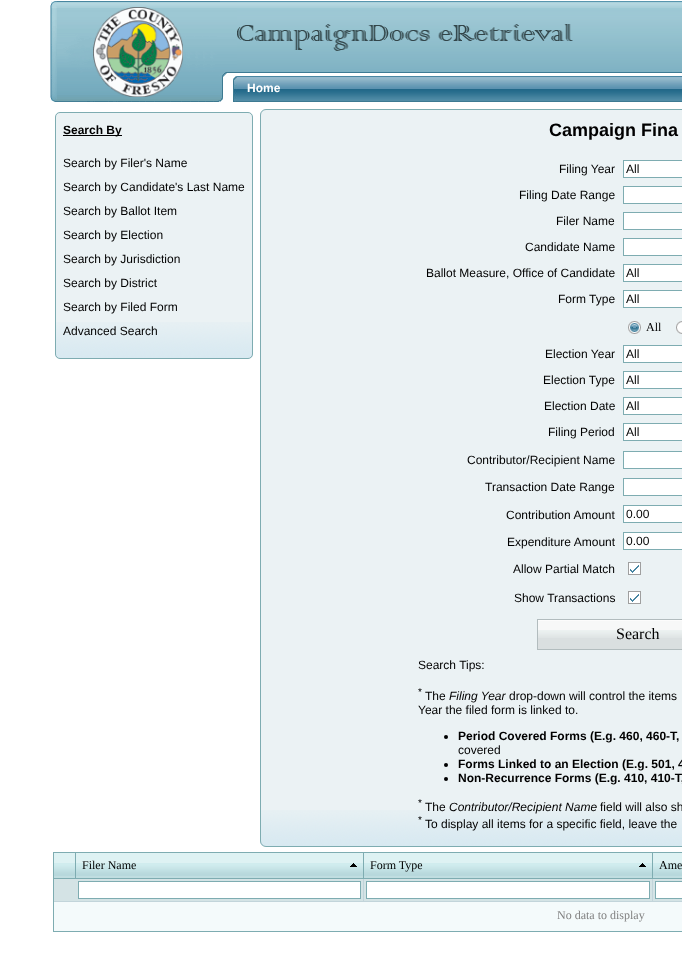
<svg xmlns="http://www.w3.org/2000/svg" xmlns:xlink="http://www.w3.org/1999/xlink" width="682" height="960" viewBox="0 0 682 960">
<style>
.cls-1{font:bold 12px Liberation Sans;fill:#ffffff}
.cls-2{font:bold 12px Liberation Sans;fill:#000000}
.cls-3{font:12px Liberation Sans;fill:#000000}
.cls-4{font:bold 18px Liberation Sans;fill:#000000}
.cls-5{font:12px Liberation Serif;fill:#000000}
.cls-6{font:16px Liberation Serif;fill:#000000}
.cls-7{font:10px Liberation Sans;fill:#000000}
.cls-8{font:italic 12px Liberation Sans;fill:#000000}
.cls-9{font:12px Liberation Serif;fill:#808080}
</style>
<rect width="100%" height="100%" fill="#ffffff"/>
<image xlink:href="image0.png" x="50" y="1" width="187" height="101"/>
<image xlink:href="image1.png" x="93" y="7" width="90" height="90"/>
<image xlink:href="image2.png" x="237" y="1" width="445" height="101"/>
<image xlink:href="image3.png" x="237" y="24" width="336" height="27"/>
<rect fill="#ebf2f4" x="55" y="112" width="198" height="247" rx="5"/>
<image xlink:href="image4.png" x="55" y="322" width="198" height="36"/>
<rect fill="none" stroke="#7eacb1" x="55.5" y="112.5" width="197" height="246" rx="4.5"/>
<rect fill="#000000" x="63" y="135" width="59" height="1"/>
<rect fill="#ebf2f4" x="260" y="109" width="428" height="738" rx="6"/>
<image xlink:href="image5.png" x="260" y="810" width="422" height="36"/>
<rect fill="none" stroke="#7eacb1" x="260.5" y="109.5" width="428" height="737" rx="5.5"/>
<rect fill="#ffffff" stroke="#7eacb1" x="623.5" y="160.5" width="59" height="17"/>
<rect fill="#ffffff" stroke="#7eacb1" x="623.5" y="186.5" width="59" height="17"/>
<rect fill="#ffffff" stroke="#7eacb1" x="623.5" y="212.5" width="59" height="17"/>
<rect fill="#ffffff" stroke="#7eacb1" x="623.5" y="238.5" width="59" height="17"/>
<rect fill="#ffffff" stroke="#7eacb1" x="623.5" y="264.5" width="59" height="17"/>
<rect fill="#ffffff" stroke="#7eacb1" x="623.5" y="290.5" width="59" height="17"/>
<image xlink:href="image6.png" x="628" y="321" width="13" height="13"/>
<image xlink:href="image7.png" x="676" y="321" width="6" height="13"/>
<rect fill="#ffffff" stroke="#7eacb1" x="623.5" y="345.5" width="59" height="17"/>
<rect fill="#ffffff" stroke="#7eacb1" x="623.5" y="371.5" width="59" height="17"/>
<rect fill="#ffffff" stroke="#7eacb1" x="623.5" y="397.5" width="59" height="17"/>
<rect fill="#ffffff" stroke="#7eacb1" x="623.5" y="423.5" width="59" height="17"/>
<rect fill="#ffffff" stroke="#7eacb1" x="623.5" y="451.5" width="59" height="17"/>
<rect fill="#ffffff" stroke="#7eacb1" x="623.5" y="478.5" width="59" height="17"/>
<rect fill="#ffffff" stroke="#7eacb1" x="623.5" y="505.5" width="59" height="17"/>
<rect fill="#ffffff" stroke="#7eacb1" x="623.5" y="532.5" width="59" height="17"/>
<image xlink:href="image8.png" x="628" y="562" width="13" height="13"/>
<image xlink:href="image8.png" x="628" y="591" width="13" height="13"/>
<rect fill="#dadfe0" x="538" y="638" width="144" height="11"/>
<image xlink:href="image9.png" x="538" y="620" width="144" height="18"/>
<rect fill="none" stroke="#b2bcbe" x="537.5" y="619.5" width="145" height="30"/>
<circle fill="#000000" cx="446" cy="737" r="2"/>
<circle fill="#000000" cx="446" cy="765" r="2"/>
<circle fill="#000000" cx="446" cy="779" r="2"/>
<rect fill="#f4fafb" x="54" y="902" width="628" height="29"/>
<rect fill="none" stroke="#7eacb1" x="53.5" y="852.5" width="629" height="79"/>
<rect fill="#c0dde0" x="54" y="876" width="21" height="2"/>
<image xlink:href="image10.png" x="54" y="853" width="21" height="23"/>
<rect fill="#7eacb1" x="75" y="853" width="1" height="26"/>
<rect fill="#7eacb1" x="54" y="878" width="22" height="1"/>
<rect fill="#c0dde0" x="76" y="876" width="287" height="2"/>
<image xlink:href="image11.png" x="76" y="853" width="287" height="23"/>
<rect fill="#7eacb1" x="363" y="853" width="1" height="26"/>
<rect fill="#7eacb1" x="76" y="878" width="288" height="1"/>
<image xlink:href="image12.png" x="350" y="863" width="7" height="4"/>
<rect fill="#c0dde0" x="364" y="876" width="288" height="2"/>
<image xlink:href="image13.png" x="364" y="853" width="288" height="23"/>
<rect fill="#7eacb1" x="652" y="853" width="1" height="26"/>
<rect fill="#7eacb1" x="364" y="878" width="318" height="1"/>
<image xlink:href="image12.png" x="639" y="863" width="7" height="4"/>
<rect fill="#c0dde0" x="653" y="876" width="29" height="2"/>
<image xlink:href="image14.png" x="653" y="853" width="29" height="23"/>
<rect fill="#d4e3e5" x="54" y="879" width="628" height="22"/>
<rect fill="#c2d4da" x="363" y="879" width="1" height="23"/>
<rect fill="#c2d4da" x="76" y="901" width="288" height="1"/>
<rect fill="#ffffff" stroke="#7eacb1" x="78.5" y="881.5" width="282" height="17"/>
<rect fill="#c2d4da" x="652" y="879" width="1" height="23"/>
<rect fill="#c2d4da" x="364" y="901" width="318" height="1"/>
<rect fill="#ffffff" stroke="#7eacb1" x="366.5" y="881.5" width="283" height="17"/>
<rect fill="#ffffff" stroke="#7eacb1" x="655.5" y="881.5" width="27" height="17"/>
<rect fill="#c2d4da" x="54" y="901" width="22" height="1"/>
<text class="cls-1" x="247" y="92">Home</text>
<text class="cls-2" x="63" y="134">Search By</text>
<text class="cls-3" x="63" y="167">Search by Filer's Name</text>
<text class="cls-3" x="63" y="191">Search by Candidate's Last Name</text>
<text class="cls-3" x="63" y="215">Search by Ballot Item</text>
<text class="cls-3" x="63" y="239">Search by Election</text>
<text class="cls-3" x="63" y="263">Search by Jurisdiction</text>
<text class="cls-3" x="63" y="287">Search by District</text>
<text class="cls-3" x="63" y="311">Search by Filed Form</text>
<text class="cls-3" x="63" y="335">Advanced Search</text>
<text class="cls-4" x="549" y="136">Campaign Fina</text>
<text class="cls-3" x="559" y="173">Filing Year</text>
<text class="cls-3" x="626" y="173">All</text>
<text class="cls-3" x="519" y="199">Filing Date Range</text>
<text class="cls-3" x="556" y="225">Filer Name</text>
<text class="cls-3" x="525" y="251">Candidate Name</text>
<text class="cls-3" x="426" y="277">Ballot Measure, Office of Candidate</text>
<text class="cls-3" x="626" y="277">All</text>
<text class="cls-3" x="558" y="303">Form Type</text>
<text class="cls-3" x="626" y="303">All</text>
<text class="cls-5" x="646" y="331">All</text>
<text class="cls-3" x="545" y="358">Election Year</text>
<text class="cls-3" x="626" y="358">All</text>
<text class="cls-3" x="543" y="384">Election Type</text>
<text class="cls-3" x="626" y="384">All</text>
<text class="cls-3" x="544" y="410">Election Date</text>
<text class="cls-3" x="626" y="410">All</text>
<text class="cls-3" x="548" y="436">Filing Period</text>
<text class="cls-3" x="626" y="436">All</text>
<text class="cls-3" x="467" y="464">Contributor/Recipient Name</text>
<text class="cls-3" x="485" y="491">Transaction Date Range</text>
<text class="cls-3" x="506" y="519">Contribution Amount</text>
<text class="cls-3" x="626" y="518">0.00</text>
<text class="cls-3" x="507" y="546">Expenditure Amount</text>
<text class="cls-3" x="626" y="545">0.00</text>
<text class="cls-3" x="513" y="573">Allow Partial Match</text>
<text class="cls-3" x="514" y="602">Show Transactions</text>
<text class="cls-6" x="616" y="639">Search</text>
<text class="cls-3" x="418" y="669">Search Tips:</text>
<text class="cls-7" x="418" y="695">*</text>
<text class="cls-3" x="425" y="700">The</text>
<text class="cls-8" x="449" y="700">Filing Year</text>
<text class="cls-3" x="509" y="700">drop-down will control the items</text>
<text class="cls-3" x="418" y="714">Year the filed form is linked to.</text>
<text class="cls-2" x="458" y="740">Period Covered Forms (E.g. 460, 460-T,</text>
<text class="cls-3" x="458" y="754">covered</text>
<text class="cls-2"><tspan x="458" y="768">Forms Linked to an Election (E.g. 501, 4</tspan><tspan x="458" y="782">Non-Recurrence Forms (E.g. 410, 410-T,</tspan></text>
<text class="cls-7" x="418" y="806">*</text>
<text class="cls-3" x="425" y="811">The</text>
<text class="cls-8" x="449" y="811">Contributor/Recipient Name</text>
<text class="cls-3" x="600" y="811">field will also sh</text>
<text class="cls-7" x="418" y="823">*</text>
<text class="cls-3" x="425" y="828">To display all items for a specific field, leave the</text>
<text class="cls-5" x="82" y="869">Filer Name</text>
<text class="cls-5" x="370" y="869">Form Type</text>
<text class="cls-5" x="659" y="869">Ame</text>
<text class="cls-9" x="557" y="919">No data to display</text>
</svg>
